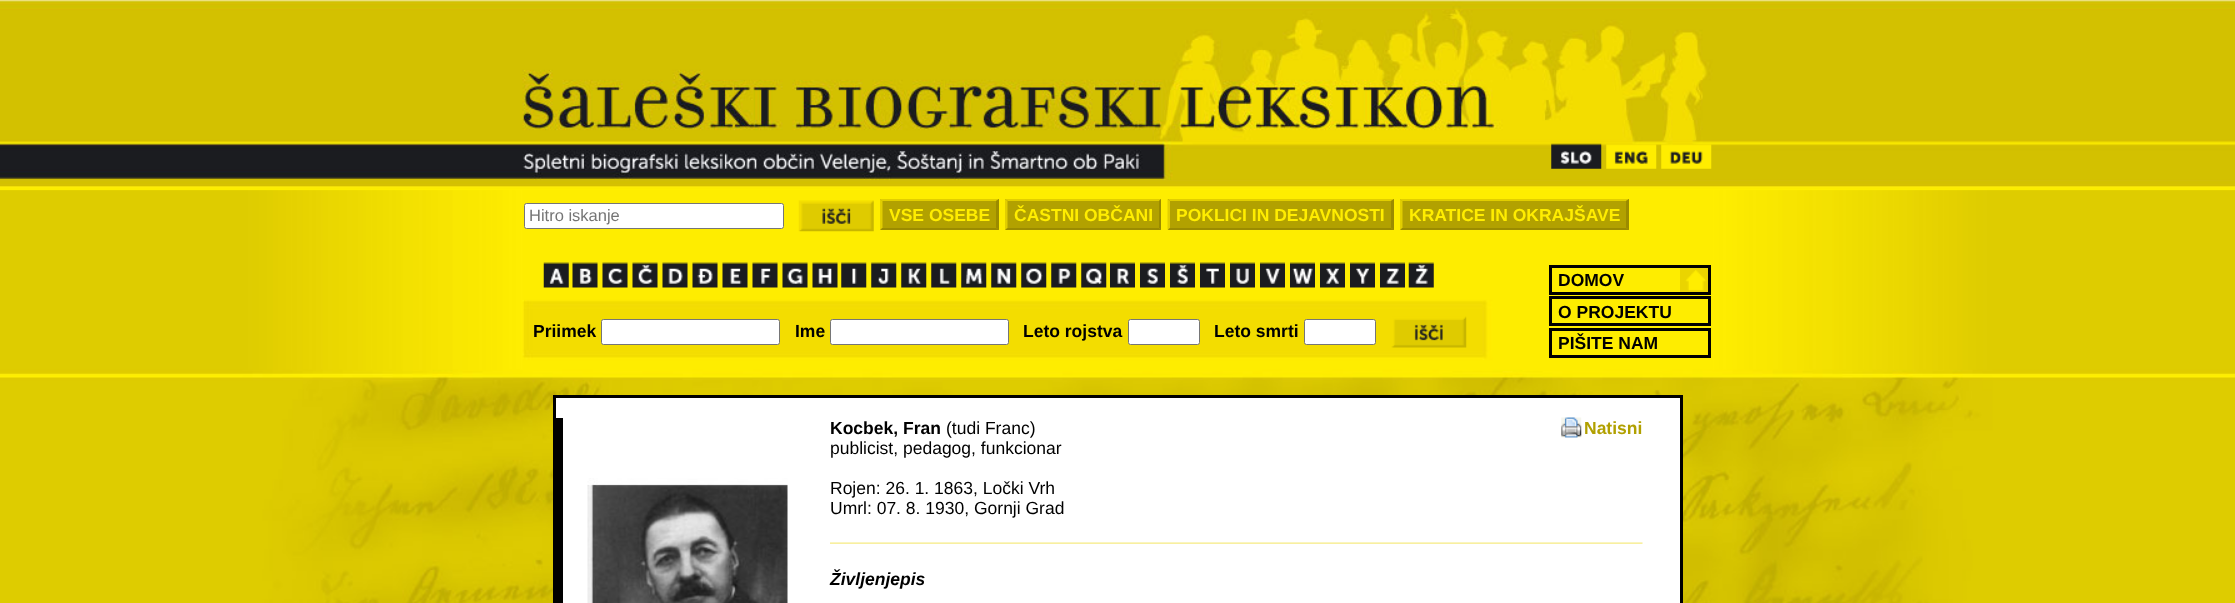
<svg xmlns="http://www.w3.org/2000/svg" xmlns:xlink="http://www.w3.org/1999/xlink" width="2235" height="603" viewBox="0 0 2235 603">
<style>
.cls-1{font:16.5px Liberation Sans;fill:#757575}
.cls-2{font:bold 17.5px Liberation Sans;fill:#ffed00}
.cls-3{font:bold 17.5px Liberation Sans;fill:#000000}
.cls-4{font:17.5px Liberation Sans;fill:#000000}
.cls-5{font:bold 17.5px Liberation Sans;fill:#b1a000}
.cls-6{font:italic bold 17.5px Liberation Sans;fill:#000000}
</style>
<rect width="100%" height="100%" fill="#ffffff"/>
<image xlink:href="image0.png" x="0" y="0" width="2235" height="603"/>
<image xlink:href="image1.png" x="1551" y="143" width="51" height="26"/>
<image xlink:href="image2.png" x="1606" y="144" width="51" height="25"/>
<image xlink:href="image3.png" x="1661" y="144" width="51" height="25"/>
<rect fill="#ffffff" stroke="#767676" x="524.5" y="203.5" width="259" height="25" rx="2"/>
<image xlink:href="image4.png" x="798" y="200" width="76" height="32"/>
<rect fill="#b2a100" x="880" y="199" width="119" height="31"/>
<path fill="#e2ce00" d="M880 199H999L996 201H882Z"/>
<path fill="#9b8b00" d="M999 199V230L996 227.5V201Z"/>
<path fill="#9b8b00" d="M999 230H880L882 228H996Z"/>
<path fill="#e2ce00" d="M880 230V199L882.5 201V227.5Z"/>
<rect fill="#b2a100" x="1005" y="199" width="156" height="31"/>
<path fill="#e2ce00" d="M1005 199H1161L1159 201H1008Z"/>
<path fill="#9b8b00" d="M1161 199V230L1159 227.5V201Z"/>
<path fill="#9b8b00" d="M1161 230H1005L1008 228H1159Z"/>
<path fill="#e2ce00" d="M1005 230V199L1007.5 201V227.5Z"/>
<rect fill="#b2a100" x="1168" y="199" width="226" height="31"/>
<path fill="#e2ce00" d="M1168 199H1394L1391 201H1170Z"/>
<path fill="#9b8b00" d="M1394 199V230L1391 227.5V201Z"/>
<path fill="#9b8b00" d="M1394 230H1168L1170 228H1391Z"/>
<path fill="#e2ce00" d="M1167.5 230V199L1170 201V227.5Z"/>
<rect fill="#b2a100" x="1400" y="199" width="229" height="31"/>
<path fill="#e2ce00" d="M1400 199H1629L1626 201H1402Z"/>
<path fill="#9b8b00" d="M1629 199V230L1626 227.5V201Z"/>
<path fill="#9b8b00" d="M1629 230H1400L1402 228H1626Z"/>
<path fill="#e2ce00" d="M1400 230V199L1402.5 201V227.5Z"/>
<image xlink:href="image5.png" x="543" y="262" width="26" height="26"/>
<image xlink:href="image6.png" x="572" y="262" width="26" height="26"/>
<image xlink:href="image7.png" x="602" y="262" width="26" height="26"/>
<image xlink:href="image8.png" x="632" y="262" width="26" height="26"/>
<image xlink:href="image9.png" x="662" y="262" width="26" height="26"/>
<image xlink:href="image10.png" x="692" y="262" width="26" height="26"/>
<image xlink:href="image11.png" x="722" y="262" width="26" height="26"/>
<image xlink:href="image12.png" x="752" y="262" width="26" height="26"/>
<image xlink:href="image13.png" x="782" y="262" width="26" height="26"/>
<image xlink:href="image14.png" x="812" y="262" width="26" height="26"/>
<image xlink:href="image15.png" x="841" y="262" width="26" height="26"/>
<image xlink:href="image16.png" x="871" y="262" width="26" height="26"/>
<image xlink:href="image17.png" x="901" y="262" width="26" height="26"/>
<image xlink:href="image18.png" x="931" y="262" width="26" height="26"/>
<image xlink:href="image19.png" x="961" y="262" width="26" height="26"/>
<image xlink:href="image20.png" x="991" y="262" width="26" height="26"/>
<image xlink:href="image21.png" x="1021" y="262" width="26" height="26"/>
<image xlink:href="image22.png" x="1051" y="262" width="26" height="26"/>
<image xlink:href="image23.png" x="1081" y="262" width="26" height="26"/>
<image xlink:href="image24.png" x="1110" y="262" width="25" height="26"/>
<image xlink:href="image25.png" x="1140" y="262" width="25" height="26"/>
<image xlink:href="image26.png" x="1170" y="262" width="25" height="26"/>
<image xlink:href="image27.png" x="1200" y="262" width="25" height="26"/>
<image xlink:href="image28.png" x="1230" y="262" width="25" height="26"/>
<image xlink:href="image29.png" x="1260" y="262" width="25" height="26"/>
<image xlink:href="image30.png" x="1290" y="262" width="25" height="26"/>
<image xlink:href="image31.png" x="1320" y="262" width="25" height="26"/>
<image xlink:href="image32.png" x="1350" y="262" width="25" height="26"/>
<image xlink:href="image33.png" x="1380" y="262" width="25" height="26"/>
<image xlink:href="image34.png" x="1408" y="262" width="26" height="26"/>
<image xlink:href="image35.png" x="1680" y="268" width="28" height="24"/>
<rect fill="none" stroke="#000000" stroke-width="3" x="1550.5" y="266.5" width="159" height="27"/>
<rect fill="none" stroke="#000000" stroke-width="3" x="1550.5" y="297.5" width="159" height="27"/>
<rect fill="none" stroke="#000000" stroke-width="3" x="1550.5" y="329.5" width="159" height="27"/>
<rect fill="#ffffff" stroke="#767676" x="601.5" y="319.5" width="178" height="25" rx="2"/>
<rect fill="#ffffff" stroke="#767676" x="830.5" y="319.5" width="178" height="25" rx="2"/>
<rect fill="#ffffff" stroke="#767676" x="1128.5" y="319.5" width="71" height="25" rx="2"/>
<rect fill="#ffffff" stroke="#767676" x="1304.5" y="319.5" width="71" height="25" rx="2"/>
<image xlink:href="image36.png" x="1391" y="316" width="76" height="32"/>
<rect fill="#ffffff" stroke="#000000" stroke-width="3" x="554.5" y="396.5" width="1127" height="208"/>
<rect fill="#000000" x="556" y="418" width="7" height="185"/>
<image xlink:href="image37.png" x="587" y="478" width="201" height="125"/>
<image xlink:href="image38.png" x="1561" y="417" width="21" height="21"/>
<image xlink:href="image39.png" x="830" y="542" width="813" height="2"/>
<text class="cls-1" x="529" y="221">Hitro iskanje</text>
<text class="cls-2" x="889" y="221">VSE OSEBE</text>
<text class="cls-2" x="1014" y="221">ČASTNI OBČANI</text>
<text class="cls-2" x="1176" y="221">POKLICI IN DEJAVNOSTI</text>
<text class="cls-2" x="1409" y="221">KRATICE IN OKRAJŠAVE</text>
<text class="cls-3"><tspan x="1558" y="286">DOMOV</tspan><tspan x="1558" y="318">O PROJEKTU</tspan><tspan x="1558" y="349">PIŠITE NAM</tspan></text>
<text class="cls-3" x="533" y="337">Priimek</text>
<text class="cls-3" x="795" y="337">Ime</text>
<text class="cls-3" x="1023" y="337">Leto rojstva</text>
<text class="cls-3" x="1214" y="337">Leto smrti</text>
<text class="cls-3" x="830" y="434">Kocbek, Fran</text>
<text class="cls-4" x="946" y="434">(tudi Franc)</text>
<text class="cls-5" x="1584" y="434">Natisni</text>
<text class="cls-4" x="830" y="454">publicist, pedagog, funkcionar</text>
<text class="cls-4"><tspan x="830" y="494">Rojen: 26. 1. 1863, Ločki Vrh</tspan><tspan x="830" y="514">Umrl: 07. 8. 1930, Gornji Grad</tspan></text>
<text class="cls-6" x="830" y="585">Življenjepis</text>
</svg>
